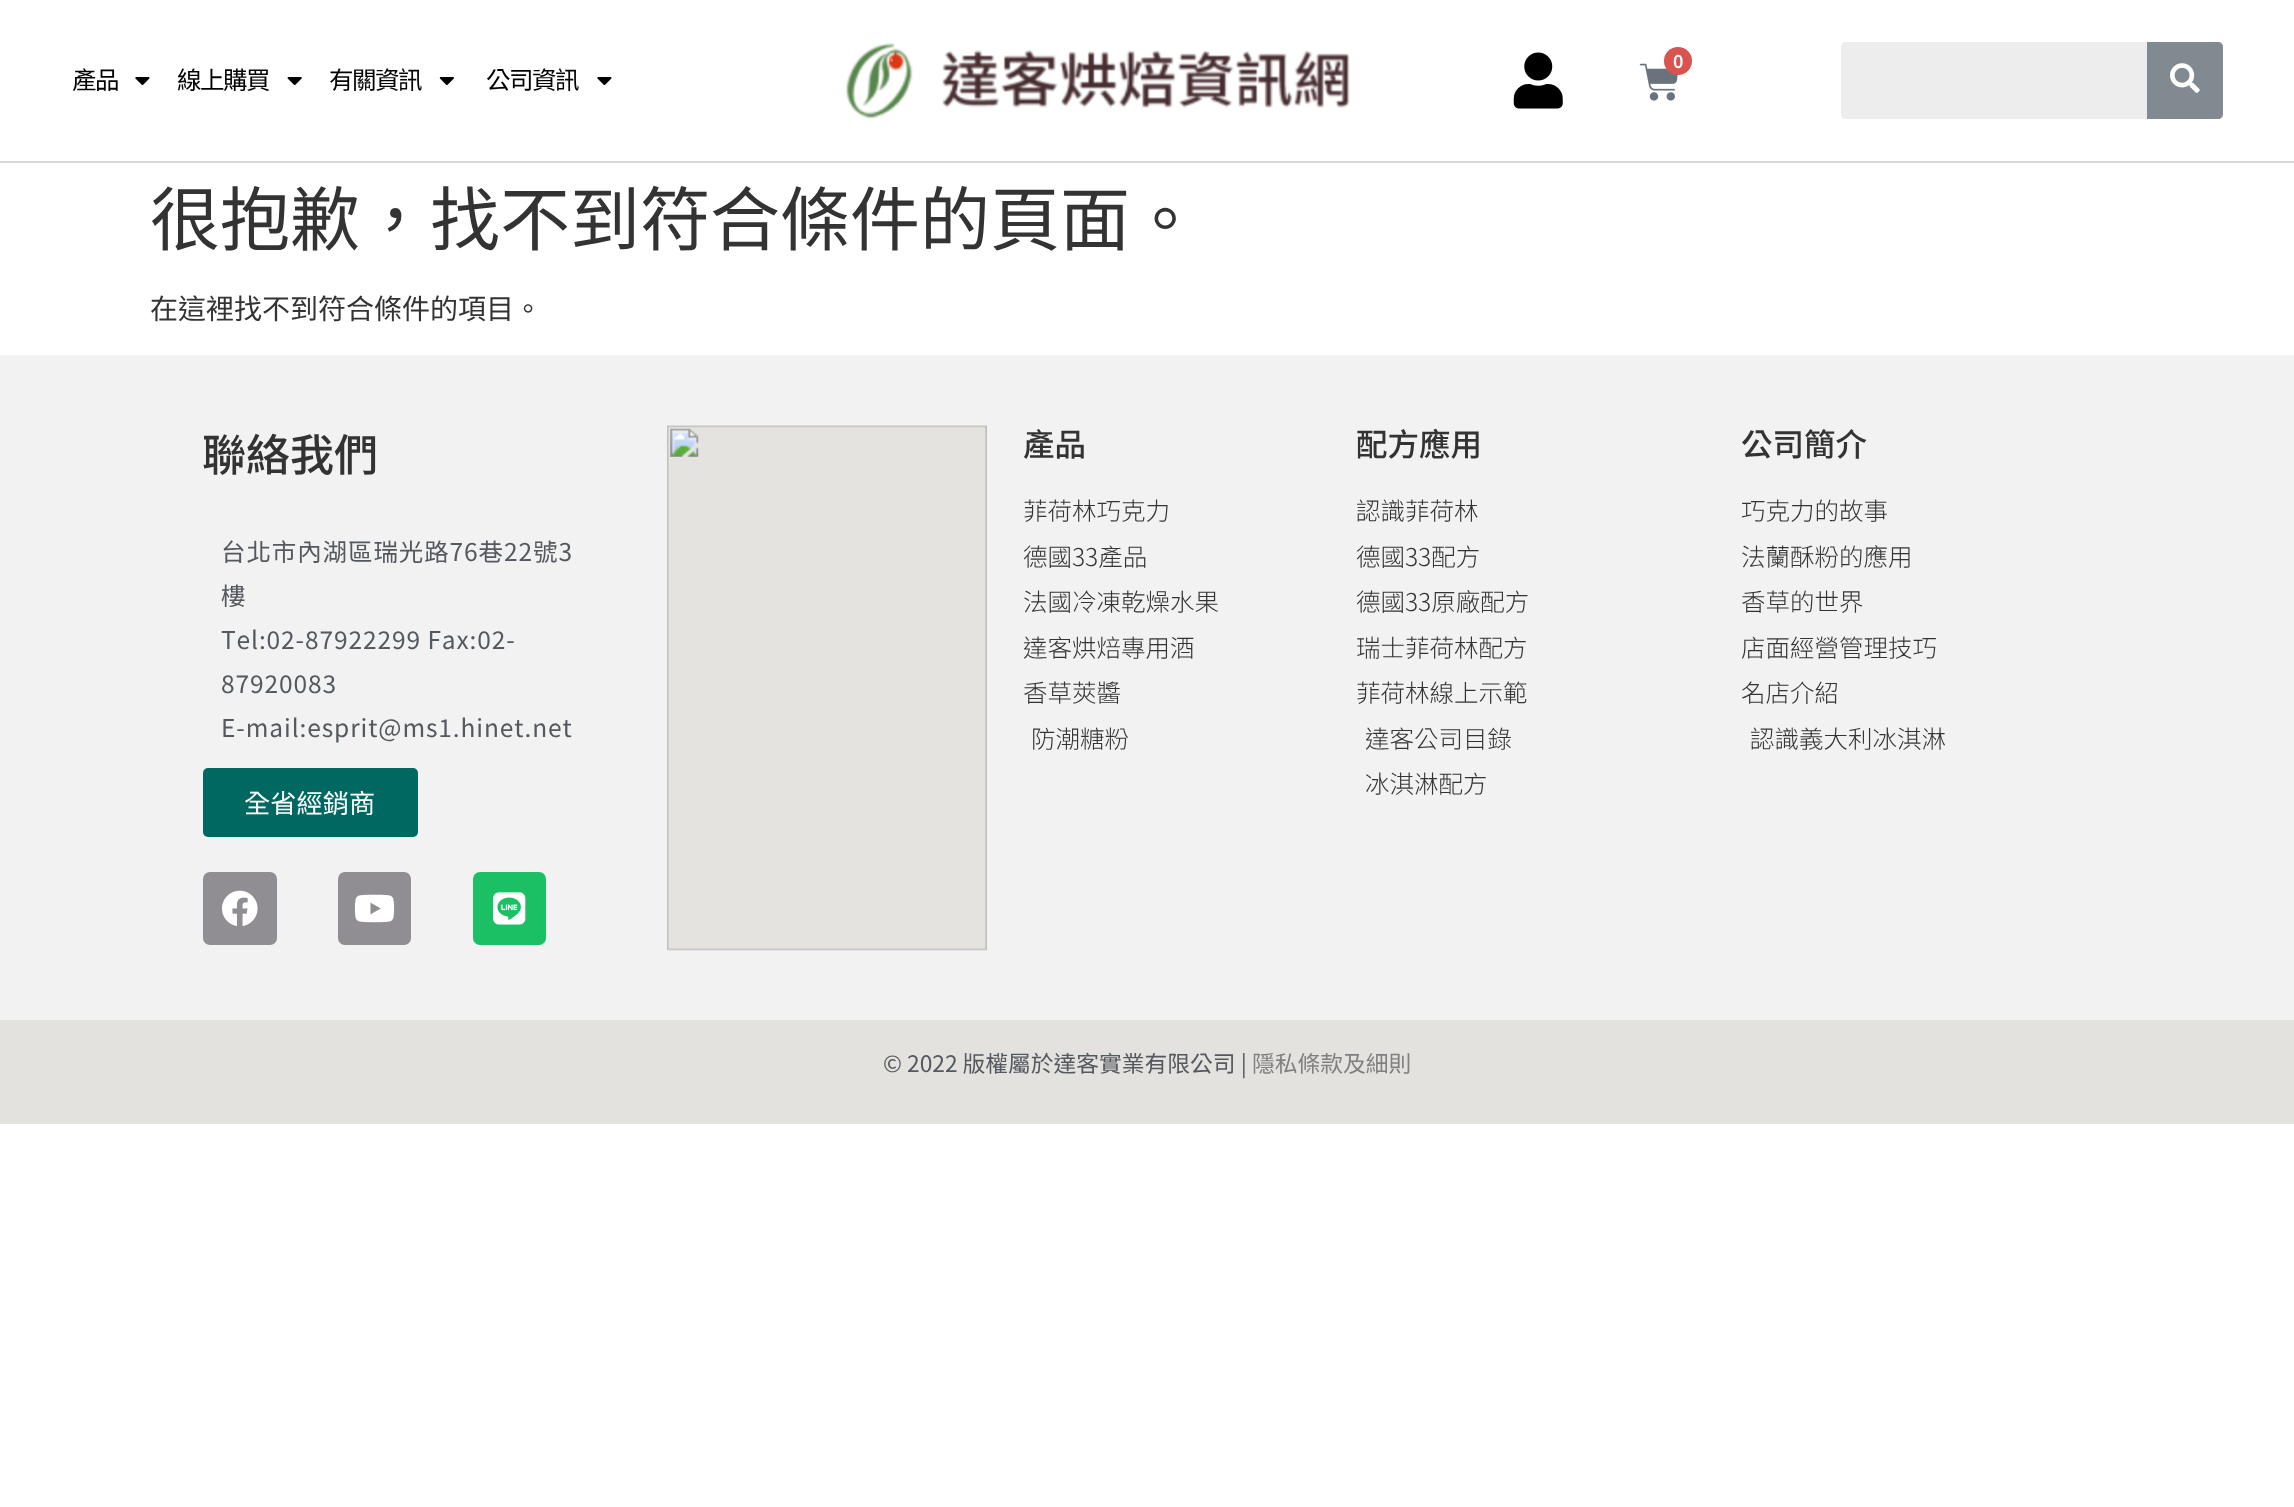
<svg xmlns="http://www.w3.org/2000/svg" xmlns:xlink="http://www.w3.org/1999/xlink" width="2294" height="1507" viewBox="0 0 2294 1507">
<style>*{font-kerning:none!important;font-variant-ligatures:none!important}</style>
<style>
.cls-1{font:600 18px Noto Sans TC;fill:#ffffff}
.cls-2{font:24.5px Noto Sans CJK TC;letter-spacing:-1.5px;fill:#000000}
.cls-3{font:70px Noto Sans CJK TC;fill:#333333}
.cls-4{font:28px Noto Sans CJK TC;fill:#333333}
.cls-5{font:500 44px Noto Sans TC;fill:#333333}
.cls-6{font:24.5px Noto Sans TC;letter-spacing:0.9px;fill:#54595f}
.cls-7{font:26.25px Noto Sans CJK TC;fill:#ffffff}
.cls-8{font:500 31.5px Noto Sans TC;fill:#333333}
.cls-9{font:300 24.5px Noto Sans TC;fill:#333333}
.cls-10{font:22.75px Noto Sans TC;fill:#54595f}
.cls-11{font:22.75px Noto Sans TC;fill:#808080}
</style>
<rect width="100%" height="100%" fill="#ffffff"/>
<rect fill="#d6d6d6" x="0" y="161" width="2294" height="2"/>
<image xlink:href="image0.png" x="846" y="43" width="504" height="76"/>
<image xlink:href="image1.png" x="1513" y="52" width="50" height="57"/>
<image xlink:href="image2.png" x="1639" y="63" width="39" height="38"/>
<circle fill="#d9534f" cx="1678" cy="61" r="14"/>
<path fill="#ededed" d="M1846 42H2147V119H1846C1843 119 1841 117 1841 114V47C1841 44 1843 42 1846 42Z"/>
<path fill="#818a91" d="M2147 42H2218C2221 42 2223 44 2223 47V114C2223 117 2221 119 2218 119H2147Z"/>
<image xlink:href="image3.png" x="2170" y="63" width="30" height="30"/>
<image xlink:href="image4.png" x="135" y="77" width="15" height="8"/>
<image xlink:href="image5.png" x="287" y="77" width="15" height="8"/>
<image xlink:href="image6.png" x="439" y="77" width="15" height="8"/>
<image xlink:href="image4.png" x="597" y="77" width="15" height="8"/>
<rect fill="#f2f2f2" x="0" y="355" width="2294" height="665"/>
<rect fill="#006861" x="203" y="768" width="215" height="69" rx="5"/>
<rect fill="#908d93" x="203" y="872" width="74" height="73" rx="7"/>
<image xlink:href="image7.png" x="221" y="890" width="37" height="36"/>
<rect fill="#908d93" x="338" y="872" width="73" height="73" rx="7"/>
<image xlink:href="image8.png" x="354" y="894" width="41" height="29"/>
<rect fill="#1ac063" x="473" y="872" width="73" height="73" rx="7"/>
<image xlink:href="image9.png" x="493" y="892" width="33" height="33"/>
<image xlink:href="image10.png" x="667" y="425" width="320" height="526"/>
<rect fill="#e4e2de" x="0" y="1020" width="2294" height="104"/>
<text class="cls-1" x="1673" y="68">0</text>
<text class="cls-2" x="72" y="89">產品</text>
<text class="cls-2" x="177" y="89">線上購買</text>
<text class="cls-2" x="329" y="89">有關資訊</text>
<text class="cls-2" x="486" y="89">公司資訊</text>
<text class="cls-3" x="150" y="245">很抱歉，找不到符合條件的頁面。</text>
<text class="cls-4" x="150" y="319">在這裡找不到符合條件的項目。</text>
<text class="cls-5" x="202" y="471">聯絡我們</text>
<text class="cls-6"><tspan x="221" y="561">台北市內湖區瑞光路76巷22號3</tspan><tspan x="221" y="605">樓</tspan><tspan x="221" y="649">Tel:02-87922299 Fax:02-</tspan><tspan x="221" y="693">87920083</tspan><tspan x="221" y="737">E-mail:esprit@ms1.hinet.net</tspan></text>
<text class="cls-7" x="244" y="813">全省經銷商</text>
<text class="cls-8" x="1023" y="456">產品</text>
<text class="cls-9"><tspan x="1023" y="520">菲荷林巧克力</tspan><tspan x="1023" y="566">德國33產品</tspan><tspan x="1023" y="611">法國冷凍乾燥水果</tspan><tspan x="1023" y="657">達客烘焙專用酒</tspan><tspan x="1023" y="702">香草莢醬</tspan></text>
<text class="cls-9" x="1031" y="748">防潮糖粉</text>
<text class="cls-8" x="1356" y="456">配方應用</text>
<text class="cls-9"><tspan x="1356" y="520">認識菲荷林</tspan><tspan x="1356" y="566">德國33配方</tspan><tspan x="1356" y="611">德國33原廠配方</tspan><tspan x="1356" y="657">瑞士菲荷林配方</tspan><tspan x="1356" y="702">菲荷林線上示範</tspan></text>
<text class="cls-9"><tspan x="1365" y="748">達客公司目錄</tspan><tspan x="1365" y="793">冰淇淋配方</tspan></text>
<text class="cls-8" x="1741" y="456">公司簡介</text>
<text class="cls-9"><tspan x="1741" y="520">巧克力的故事</tspan><tspan x="1741" y="566">法蘭酥粉的應用</tspan><tspan x="1741" y="611">香草的世界</tspan><tspan x="1741" y="657">店面經營管理技巧</tspan><tspan x="1741" y="702">名店介紹</tspan></text>
<text class="cls-9" x="1750" y="748">認識義大利冰淇淋</text>
<text class="cls-10" x="883" y="1072">© 2022 版權屬於達客實業有限公司 |</text>
<text class="cls-11" x="1252" y="1072">隱私條款及細則</text>
</svg>
